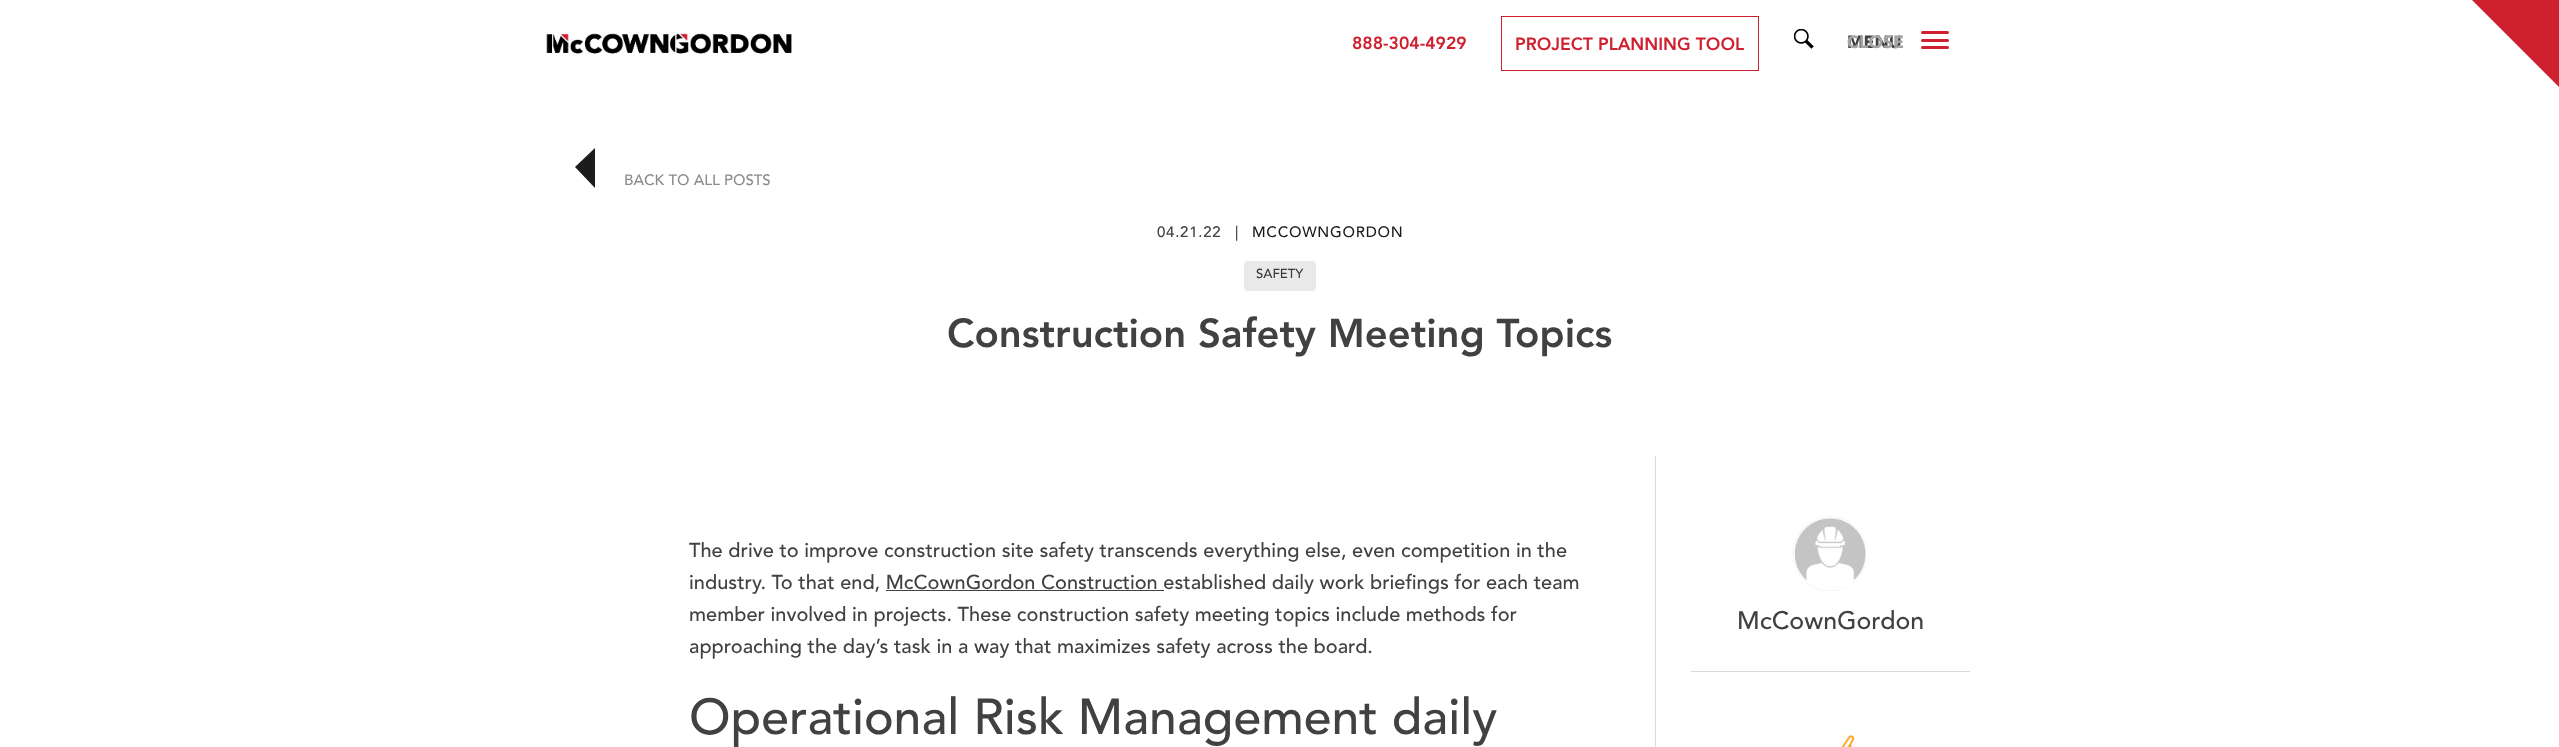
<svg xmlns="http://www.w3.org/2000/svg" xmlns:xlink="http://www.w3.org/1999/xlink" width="2559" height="747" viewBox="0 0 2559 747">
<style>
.cls-1{font:900 17.5px Avenir;fill:#cf2030}
.cls-2{font:900 17.5px 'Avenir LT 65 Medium';fill:#414042}
.cls-3{font:900 17.5px 'Avenir LT 65 Medium';fill:#a5a4a5}
.cls-4{font:500 15px Avenir;fill:#8c8c8c}
.cls-5{font:500 15px Avenir;letter-spacing:0.75px;fill:#414042}
.cls-6{font:500 15px Avenir;letter-spacing:0.75px;fill:#1c1c1c}
.cls-7{font:500 13px Avenir;fill:#39383a}
.cls-8{font:900 40px Avenir;fill:#414042}
.cls-9{font:500 20px Avenir;fill:#414042}
.cls-10{font:500 50px Avenir;fill:#414042}
.cls-11{font:500 25px Avenir;fill:#414042}
</style>
<rect width="100%" height="100%" fill="#ffffff"/>
<image xlink:href="image0.png" x="546" y="33" width="246" height="21"/>
<rect fill="none" stroke="#cf2030" x="1501.5" y="16.5" width="257" height="54"/>
<image xlink:href="image1.png" x="1794" y="29" width="20" height="20"/>
<rect fill="#cf2030" x="1921" y="39" width="28" height="3" rx="1.5"/>
<rect fill="#cf2030" x="1921" y="31" width="28" height="3" rx="1.5"/>
<rect fill="#cf2030" x="1921" y="46" width="28" height="3" rx="1.5"/>
<path fill="#cf2030" d="M2472 0H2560V88Z"/>
<path fill="#1c1c1c" d="M575 167L595 188V148Z"/>
<rect fill="#e9e9e9" x="1244" y="261" width="72" height="30" rx="4"/>
<rect fill="#414042" x="886" y="590" width="278" height="1"/>
<rect fill="#dadada" x="1655" y="456" width="1" height="291"/>
<rect fill="#dadada" x="1691" y="671" width="279" height="1"/>
<image xlink:href="image2.png" x="1792" y="516" width="75" height="75"/>
<image xlink:href="image3.png" x="1841" y="735" width="14" height="12"/>
<text class="cls-1" x="1352" y="49">888-304-4929</text>
<text class="cls-1" x="1515" y="50">PROJECT PLANNING TOOL</text>
<text class="cls-2" x="1847" y="48">MENU</text>
<text class="cls-3" x="1847" y="48">CLOSE</text>
<text class="cls-4" x="624" y="185">BACK TO ALL POSTS</text>
<text class="cls-5" x="1157" y="237">04.21.22</text>
<text class="cls-5" x="1235" y="237">|</text>
<text class="cls-6" x="1252" y="237">MCCOWNGORDON</text>
<text class="cls-7" x="1256" y="278">SAFETY</text>
<text class="cls-8" x="947" y="347">Construction Safety Meeting Topics</text>
<text class="cls-9"><tspan x="689" y="557">The drive to improve construction site safety transcends everything else, even competition in the</tspan><tspan x="689" y="589">industry. To that end, McCownGordon Construction established daily work briefings for each team</tspan><tspan x="689" y="621">member involved in projects. These construction safety meeting topics include methods for</tspan><tspan x="689" y="653">approaching the day’s task in a way that maximizes safety across the board.</tspan></text>
<text class="cls-10" x="689" y="734">Operational Risk Management daily</text>
<text class="cls-11" x="1737" y="629">McCownGordon</text>
</svg>
